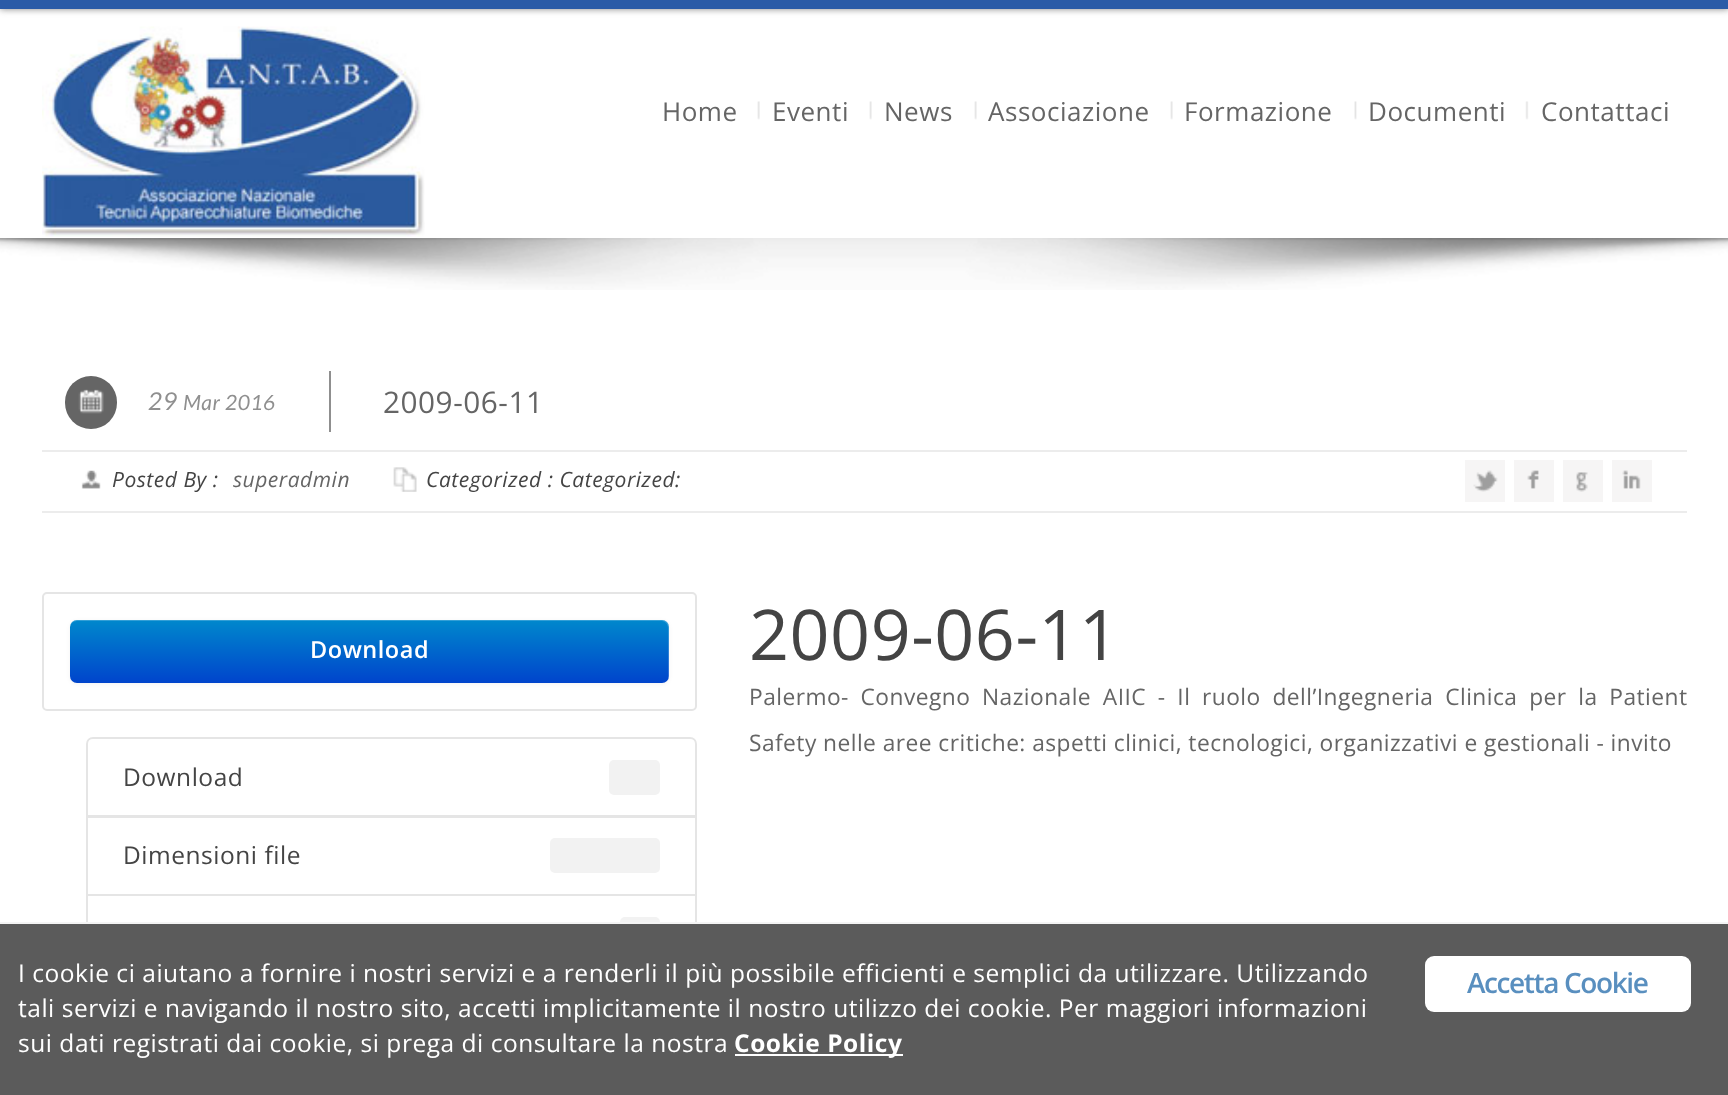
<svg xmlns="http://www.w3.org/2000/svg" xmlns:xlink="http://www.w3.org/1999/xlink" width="1728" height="1095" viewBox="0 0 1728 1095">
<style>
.cls-1{font:26px Open Sans;letter-spacing:0.53px;fill:#656565}
.cls-2{font:italic 24.5px Lato;letter-spacing:0.53px;fill:#8f8f8f}
.cls-3{font:italic 21px Lato;letter-spacing:0.53px;fill:#8f8f8f}
.cls-4{font:29.75px Open Sans;letter-spacing:0.53px;fill:#656565}
.cls-5{font:italic 21px Open Sans;letter-spacing:0.53px;fill:#444444}
.cls-6{font:italic 21px Open Sans;letter-spacing:0.53px;fill:#656565}
.cls-7{font:600 23.5px Open Sans;letter-spacing:0.53px;fill:#ffffff}
.cls-8{font:24.5px Open Sans;letter-spacing:0.53px;fill:#444444}
.cls-9{font:70px Open Sans;letter-spacing:0.53px;fill:#444444}
.cls-10{font:22.75px Open Sans;letter-spacing:0.45px;fill:#656565}
.cls-11{font:24.5px Open Sans;letter-spacing:0.53px;fill:#ffffff}
.cls-12{font:bold 24.5px Open Sans;letter-spacing:0.53px;fill:#ffffff}
.cls-13{font:600 28px Open Sans;letter-spacing:-1.4px;fill:#598fbf}
</style>
<defs>
<linearGradient id="g1" gradientUnits="userSpaceOnUse" x1="369" y1="620" x2="369" y2="683"><stop offset="0" stop-color="#0088cc"/><stop offset="1" stop-color="#0044cc"/></linearGradient>
</defs>
<rect width="100%" height="100%" fill="#ffffff"/>
<rect fill="#838383" filter="blur(3.5px)" x="0" y="0" width="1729" height="9"/>
<rect fill="#2a5ba7" x="0" y="0" width="1728" height="9"/>
<image xlink:href="image0.png" x="42" y="26" width="383" height="211"/>
<image xlink:href="image1.png" x="757" y="101" width="3" height="19"/>
<image xlink:href="image2.png" x="869" y="101" width="3" height="19"/>
<image xlink:href="image2.png" x="974" y="101" width="3" height="19"/>
<image xlink:href="image2.png" x="1170" y="101" width="3" height="19"/>
<image xlink:href="image3.png" x="1354" y="101" width="3" height="19"/>
<image xlink:href="image4.png" x="1525" y="101" width="4" height="19"/>
<image xlink:href="image5.png" x="0" y="238" width="1728" height="52"/>
<rect fill="#8f8f8f" x="329" y="371" width="2" height="61"/>
<rect fill="#656565" x="65" y="376" width="52" height="53" rx="26"/>
<image xlink:href="image6.png" x="78" y="389" width="26" height="25"/>
<rect fill="#ececec" x="42" y="450" width="1645" height="2"/>
<rect fill="#ececec" x="42" y="511" width="1645" height="2"/>
<image xlink:href="image7.png" x="81" y="470" width="20" height="19"/>
<image xlink:href="image8.png" x="393" y="467" width="24" height="25"/>
<rect fill="#f6f5f5" x="1465" y="460" width="40" height="42"/>
<image xlink:href="image9.png" x="1473" y="470" width="25" height="22"/>
<rect fill="#f6f5f5" x="1514" y="460" width="40" height="42"/>
<image xlink:href="image10.png" x="1527" y="470" width="12" height="19"/>
<rect fill="#f6f5f5" x="1563" y="460" width="40" height="42"/>
<image xlink:href="image11.png" x="1576" y="472" width="12" height="20"/>
<rect fill="#f6f5f5" x="1612" y="460" width="40" height="42"/>
<image xlink:href="image12.png" x="1622" y="470" width="19" height="19"/>
<rect fill="none" stroke="#e5e5e5" stroke-width="2" x="43" y="593" width="653" height="117" rx="4"/>
<rect fill="#000000" fill-opacity="0.05" filter="blur(2px)" x="70" y="621" width="599" height="63" rx="7"/>
<rect fill="url(#g1)" x="70" y="620" width="599" height="63" rx="7"/>
<path fill="#ffffff" fill-opacity="0.2" d="M77 621H662C665 621 668 624 668 628V677C668 679 668 680 667 681C668 680 669 678 669 676V627C669 623 666 620 662 620H77C73 620 70 623 70 627V628C70 624 73 621 77 621Z"/>
<path fill="none" stroke="#e5e5e5" stroke-width="2" d="M93 738H690C693.5 738 696 740.5 696 744V816H87V744C87 740.5 89.5 738 93 738Z"/>
<rect fill="#f2f2f2" x="609" y="760" width="51" height="35" rx="5"/>
<rect fill="none" stroke="#e5e5e5" stroke-width="2" x="87" y="817" width="609" height="78"/>
<rect fill="#f2f2f2" x="550" y="838" width="110" height="35" rx="5"/>
<rect fill="none" stroke="#e5e5e5" stroke-width="2" x="87" y="895" width="609" height="79"/>
<rect fill="#f2f2f2" x="620" y="917" width="40" height="35" rx="5"/>
<rect fill="#5b5b5b" x="0" y="924" width="1728" height="171"/>
<rect fill="#f4f4f4" x="0" y="922" width="1728" height="2"/>
<rect fill="#ffffff" x="735" y="1054" width="168" height="2"/>
<rect fill="#ffffff" x="1425" y="956" width="266" height="56" rx="9"/>
<text class="cls-1" x="662" y="121">Home</text>
<text class="cls-1" x="772" y="121">Eventi</text>
<text class="cls-1" x="884" y="121">News</text>
<text class="cls-1" x="988" y="121">Associazione</text>
<text class="cls-1" x="1184" y="121">Formazione</text>
<text class="cls-1" x="1368" y="121">Documenti</text>
<text class="cls-1" x="1541" y="121">Contattaci</text>
<text class="cls-2" x="148" y="410">29</text>
<text class="cls-3" x="183" y="410">Mar 2016</text>
<text class="cls-4" x="383" y="413">2009-06-11</text>
<text class="cls-5" x="112" y="487">Posted By :</text>
<text class="cls-6" x="233" y="487">superadmin</text>
<text class="cls-5" x="426" y="487">Categorized : Categorized:</text>
<text class="cls-7" x="310" y="658">Download</text>
<text class="cls-8" x="123" y="786">Download</text>
<text class="cls-8" x="123" y="864">Dimensioni file</text>
<text class="cls-9" x="749" y="660">2009-06-11</text>
<text class="cls-10" x="749" y="705" word-spacing="5.4">Palermo- Convegno Nazionale AIIC - Il ruolo dell’Ingegneria Clinica per la Patient</text>
<text class="cls-10" x="749" y="751">Safety nelle aree critiche: aspetti clinici, tecnologici, organizzativi e gestionali - invito</text>
<text class="cls-11"><tspan x="18" y="982">I cookie ci aiutano a fornire i nostri servizi e a renderli il più possibile efficienti e semplici da utilizzare. Utilizzando</tspan><tspan x="18" y="1017">tali servizi e navigando il nostro sito, accetti implicitamente il nostro utilizzo dei cookie. Per maggiori informazioni</tspan><tspan x="18" y="1052">sui dati registrati dai cookie, si prega di consultare la nostra</tspan></text>
<text class="cls-12" x="734" y="1052">Cookie Policy</text>
<text class="cls-13" x="1467" y="993">Accetta Cookie</text>
</svg>
